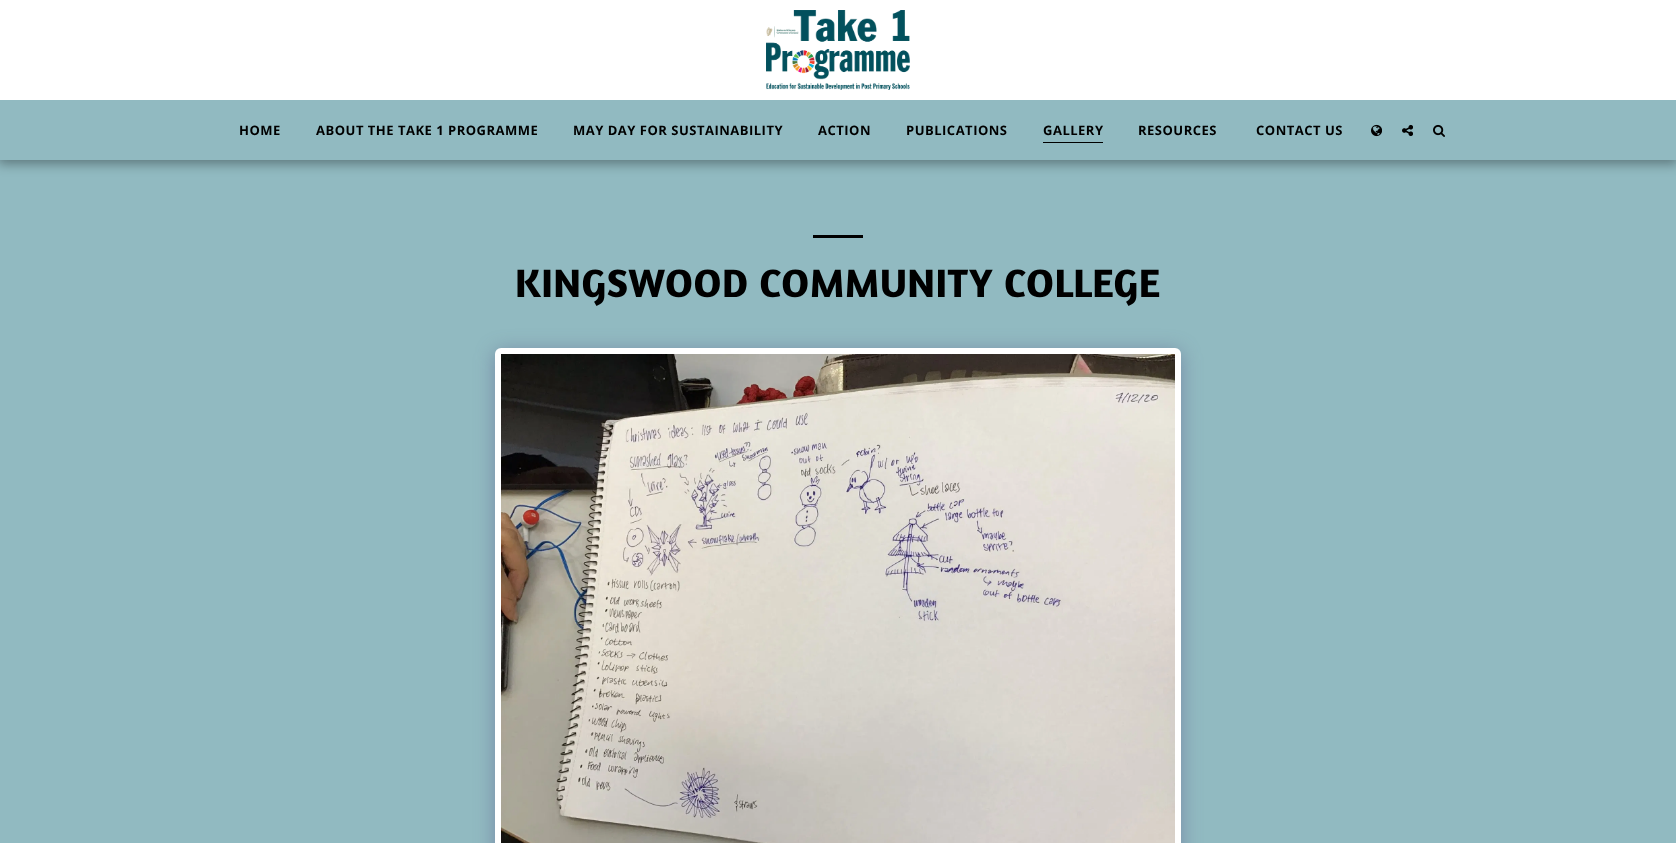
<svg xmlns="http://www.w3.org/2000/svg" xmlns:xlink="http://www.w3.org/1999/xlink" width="1676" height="843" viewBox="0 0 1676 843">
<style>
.cls-1{font:bold 13px Open Sans;letter-spacing:0.5px;fill:#000000}
.cls-2{font:bold 40.25px Amaranth;letter-spacing:0.5px;fill:#000000}
</style>
<rect width="100%" height="100%" fill="#91bac1"/>
<rect fill="#000000" fill-opacity="0.35" filter="blur(6px)" x="-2" y="0" width="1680" height="164"/>
<rect fill="#91bac1" x="0" y="100" width="1676" height="60"/>
<rect fill="#ffffff" x="0" y="0" width="1676" height="100"/>
<image xlink:href="image0.png" x="766" y="10" width="144" height="80"/>
<rect fill="#000000" x="1043" y="142" width="60" height="1"/>
<image xlink:href="image1.png" x="1371" y="124" width="11" height="13"/>
<image xlink:href="image2.png" x="1402" y="124" width="11" height="13"/>
<image xlink:href="image3.png" x="1433" y="124" width="12" height="13"/>
<rect fill="#000000" x="813" y="235" width="50" height="3"/>
<rect fill="#4d3f7a" fill-opacity="0.4" filter="blur(10px)" x="495" y="351" width="686" height="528" rx="6"/>
<rect fill="#ffffff" x="495" y="348" width="686" height="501" rx="6"/>
<image xlink:href="image4.png" x="501" y="354" width="674" height="489"/>
<text class="cls-1" x="239" y="135">HOME</text>
<text class="cls-1" x="316" y="135">ABOUT THE TAKE 1 PROGRAMME</text>
<text class="cls-1" x="573" y="135">MAY DAY FOR SUSTAINABILITY</text>
<text class="cls-1" x="818" y="135">ACTION</text>
<text class="cls-1" x="906" y="135">PUBLICATIONS</text>
<text class="cls-1" x="1043" y="135">GALLERY</text>
<text class="cls-1" x="1138" y="135">RESOURCES</text>
<text class="cls-1" x="1256" y="135">CONTACT US</text>
<text class="cls-2" x="515" y="297">KINGSWOOD COMMUNITY COLLEGE</text>
</svg>
